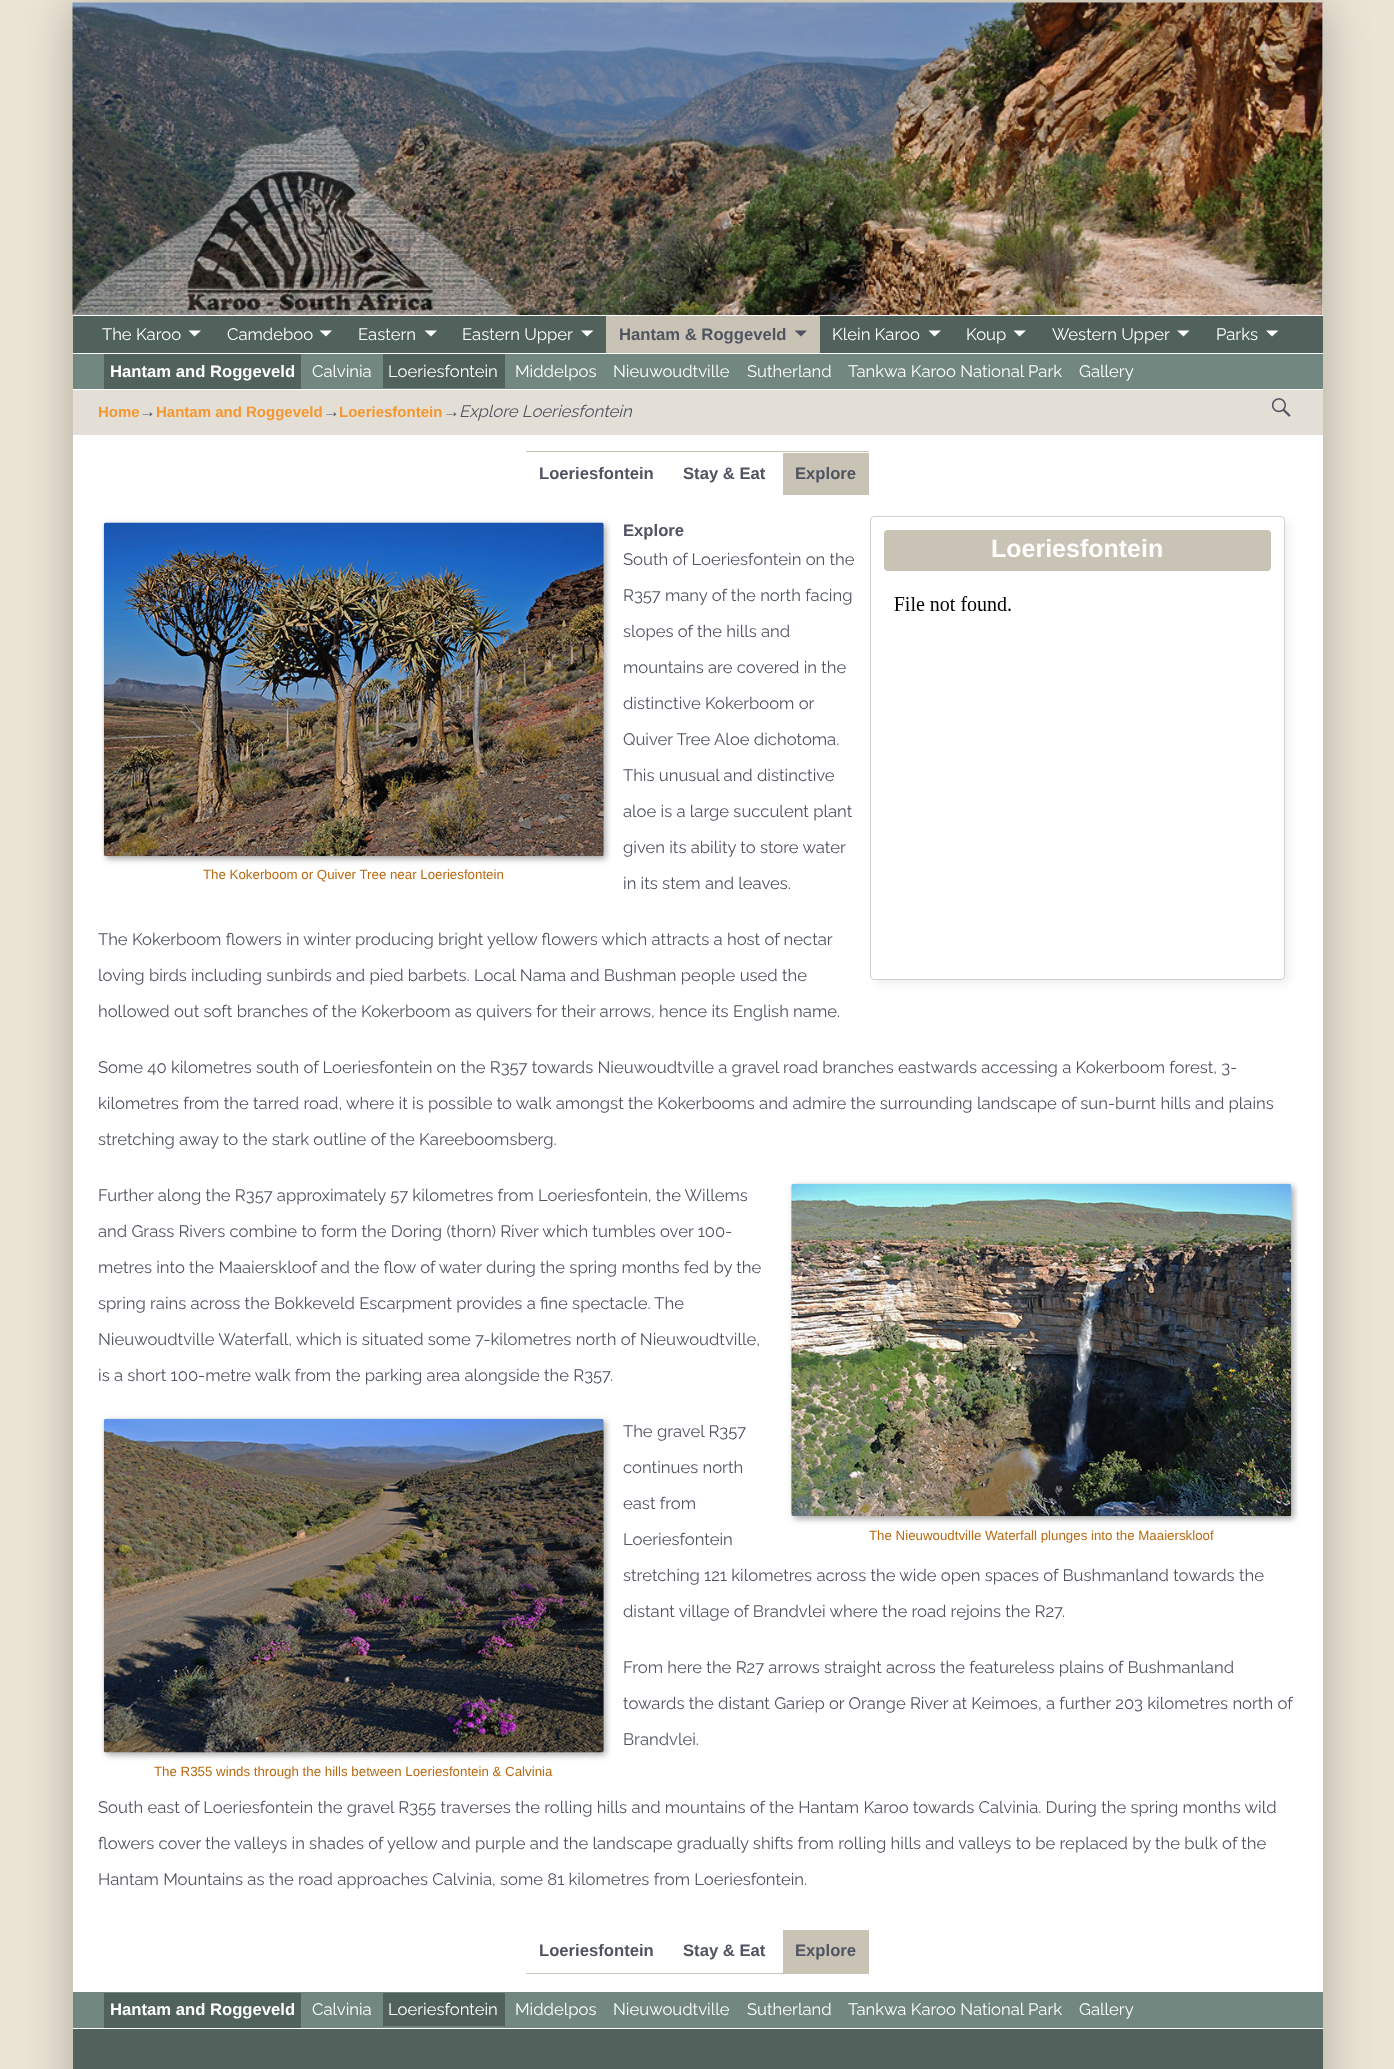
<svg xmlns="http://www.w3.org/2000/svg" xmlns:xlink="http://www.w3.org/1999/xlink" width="1394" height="2069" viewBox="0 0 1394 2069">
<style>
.cls-1{font:100 16.67px Raleway;fill:#ffffff}
.cls-2{font:bold 16.67px Liberation Sans;fill:#505461}
.cls-3{font:bold 16.67px Liberation Sans;fill:#ffffff}
.cls-4{font:bold 15px Liberation Sans;fill:#f4972f}
.cls-5{font:16.67px Liberation Sans;fill:#505461}
.cls-6{font:italic 100 16.67px Raleway;fill:#505461}
.cls-7{font:bold 25px Liberation Sans;fill:#ffffff}
.cls-8{font:13.3px Liberation Sans;fill:#b86a12}
.cls-9{font:100 16.67px Raleway;fill:#505461}
</style>
<defs>
<clipPath id="clip1"><rect x="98" y="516" width="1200" height="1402"/></clipPath>
<clipPath id="clip2"><path d="M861 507H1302V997H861ZM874 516H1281C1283 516 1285 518 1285 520V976C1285 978 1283 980 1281 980H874C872 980 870 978 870 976V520C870 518 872 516 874 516Z" clip-rule="evenodd"/></clipPath>
</defs>
<rect width="100%" height="100%" fill="#ece5d6"/>
<rect fill="#aba69b" filter="blur(25px)" x="73" y="3" width="1250" height="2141"/>
<rect fill="#ffffff" x="73" y="3" width="1250" height="1989"/>
<image xlink:href="image0.png" x="72" y="2" width="1251" height="313"/>
<rect fill="#51615c" x="73" y="316" width="1250" height="37"/>
<path fill="#ffffff" d="M188.5 330.5H201L194.5 336.5Z"/>
<path fill="#ffffff" d="M319.5 330.5H332L326 336.5Z"/>
<path fill="#ffffff" d="M424.5 330.5H437L431 336.5Z"/>
<path fill="#ffffff" d="M581 330.5H593.5L587 336.5Z"/>
<rect fill="#c9c3b6" x="606" y="316" width="214" height="37"/>
<path fill="#505461" d="M794.5 330.5H807L801 336.5Z"/>
<path fill="#ffffff" d="M928.5 330.5H941L934.5 336.5Z"/>
<path fill="#ffffff" d="M1013.5 330.5H1026L1019.5 336.5Z"/>
<path fill="#ffffff" d="M1177 330.5H1189.5L1183.5 336.5Z"/>
<path fill="#ffffff" d="M1266 330.5H1278.5L1272 336.5Z"/>
<rect fill="#718780" x="73" y="354" width="1250" height="35"/>
<rect fill="#51615c" x="104" y="354" width="197" height="35"/>
<rect fill="#51615c" x="383" y="354" width="122" height="34"/>
<rect fill="#e3dfd7" x="73" y="390" width="1250" height="45"/>
<image xlink:href="image1.png" x="1271" y="398" width="20" height="19"/>
<rect fill="#c9c3b6" x="526" y="451" width="343" height="1"/>
<rect fill="#c9c3b6" x="783" y="453" width="86" height="42"/>
<g clip-path="url(#clip1)">
<g clip-path="url(#clip2)">
<rect fill="#f0f0f0" filter="blur(4px)" x="874" y="520" width="415" height="464" rx="4"/>
</g>
</g>
<rect fill="none" stroke="#d0d0d0" x="870.5" y="516.5" width="414" height="463" rx="3.5"/>
<rect fill="#c9c3b6" x="884" y="530" width="387" height="41" rx="4"/>
<image xlink:href="image2.png" x="894" y="596" width="117" height="15"/>
<rect fill="#aaaaaa" filter="blur(3px)" x="106" y="525" width="500" height="334" rx="2.5"/>
<image xlink:href="image3.png" x="103" y="522" width="501" height="335"/>
<g clip-path="url(#clip1)">
<rect fill="#aaaaaa" filter="blur(3px)" x="794" y="1186" width="500" height="333" rx="2.5"/>
</g>
<image xlink:href="image4.png" x="791" y="1183" width="501" height="334"/>
<rect fill="#aaaaaa" filter="blur(3px)" x="106" y="1421" width="500" height="334" rx="2.5"/>
<image xlink:href="image5.png" x="103" y="1418" width="501" height="335"/>
<rect fill="#c9c3b6" x="526" y="1973" width="343" height="1"/>
<rect fill="#c9c3b6" x="783" y="1930" width="86" height="43"/>
<rect fill="#51615c" x="73" y="2029" width="1250" height="40"/>
<rect fill="#718780" x="73" y="1992" width="1250" height="36"/>
<rect fill="#ffffff" x="73" y="2028" width="1250" height="1"/>
<rect fill="#51615c" x="104" y="1993" width="197" height="35"/>
<rect fill="#51615c" x="383" y="1993" width="122" height="33"/>
<text class="cls-1" x="102" y="340">The Karoo</text>
<text class="cls-1" x="227" y="340">Camdeboo</text>
<text class="cls-1" x="358" y="340">Eastern</text>
<text class="cls-1" x="462" y="340">Eastern Upper</text>
<text class="cls-2" x="619" y="340">Hantam &amp; Roggeveld</text>
<text class="cls-1" x="832" y="340">Klein Karoo</text>
<text class="cls-1" x="966" y="340">Koup</text>
<text class="cls-1" x="1052" y="340">Western Upper</text>
<text class="cls-1" x="1216" y="340">Parks</text>
<text class="cls-3" x="110" y="377">Hantam and Roggeveld</text>
<text class="cls-1" x="312" y="377">Calvinia</text>
<text class="cls-1" x="388" y="377">Loeriesfontein</text>
<text class="cls-1" x="515" y="377">Middelpos</text>
<text class="cls-1" x="613" y="377">Nieuwoudtville</text>
<text class="cls-1" x="747" y="377">Sutherland</text>
<text class="cls-1" x="848" y="377">Tankwa Karoo National Park</text>
<text class="cls-1" x="1079" y="377">Gallery</text>
<text class="cls-4" x="98" y="417">Home</text>
<text class="cls-5" x="139" y="417">→</text>
<text class="cls-4" x="156" y="417">Hantam and Roggeveld</text>
<text class="cls-5" x="323" y="417">→</text>
<text class="cls-4" x="339" y="417">Loeriesfontein</text>
<text class="cls-5" x="443" y="417">→</text>
<text class="cls-6" x="459" y="417">Explore Loeriesfontein</text>
<text class="cls-2" x="539" y="479">Loeriesfontein</text>
<text class="cls-2" x="683" y="479">Stay &amp; Eat</text>
<text class="cls-2" x="795" y="479">Explore</text>
<text class="cls-2" x="623" y="536">Explore</text>
<text class="cls-7" x="991" y="557">Loeriesfontein</text>
<text class="cls-8" x="203" y="879">The Kokerboom or Quiver Tree near Loeriesfontein</text>
<text class="cls-9" x="623" y="565">South of Loeriesfontein on the</text>
<text class="cls-9" x="623" y="601">R357 many of the north facing</text>
<text class="cls-9" x="623" y="637">slopes of the hills and</text>
<text class="cls-9" x="623" y="673">mountains are covered in the</text>
<text class="cls-9" x="623" y="709">distinctive Kokerboom or</text>
<text class="cls-9" x="623" y="745">Quiver Tree Aloe dichotoma.</text>
<text class="cls-9" x="623" y="781">This unusual and distinctive</text>
<text class="cls-9" x="623" y="817">aloe is a large succulent plant</text>
<text class="cls-9" x="623" y="853">given its ability to store water</text>
<text class="cls-9" x="623" y="889">in its stem and leaves.</text>
<text class="cls-9" x="98" y="945">The Kokerboom flowers in winter producing bright yellow flowers which attracts a host of nectar</text>
<text class="cls-9" x="98" y="981">loving birds including sunbirds and pied barbets. Local Nama and Bushman people used the</text>
<text class="cls-9" x="98" y="1017">hollowed out soft branches of the Kokerboom as quivers for their arrows, hence its English name.</text>
<text class="cls-9" x="98" y="1073">Some 40 kilometres south of Loeriesfontein on the R357 towards Nieuwoudtville a gravel road branches eastwards accessing a Kokerboom forest, 3-</text>
<text class="cls-9" x="98" y="1109">kilometres from the tarred road, where it is possible to walk amongst the Kokerbooms and admire the surrounding landscape of sun-burnt hills and plains</text>
<text class="cls-9" x="98" y="1145">stretching away to the stark outline of the Kareeboomsberg.</text>
<text class="cls-9" x="98" y="1201">Further along the R357 approximately 57 kilometres from Loeriesfontein, the Willems</text>
<text class="cls-9" x="98" y="1237">and Grass Rivers combine to form the Doring (thorn) River which tumbles over 100-</text>
<text class="cls-9" x="98" y="1273">metres into the Maaierskloof and the flow of water during the spring months fed by the</text>
<text class="cls-9" x="98" y="1309">spring rains across the Bokkeveld Escarpment provides a fine spectacle. The</text>
<text class="cls-9" x="98" y="1345">Nieuwoudtville Waterfall, which is situated some 7-kilometres north of Nieuwoudtville,</text>
<text class="cls-9" x="98" y="1381">is a short 100-metre walk from the parking area alongside the R357.</text>
<text class="cls-9" x="623" y="1437">The gravel R357</text>
<text class="cls-9" x="623" y="1473">continues north</text>
<text class="cls-9" x="623" y="1509">east from</text>
<text class="cls-9" x="623" y="1545">Loeriesfontein</text>
<text class="cls-9" x="623" y="1581">stretching 121 kilometres across the wide open spaces of Bushmanland towards the</text>
<text class="cls-9" x="623" y="1617">distant village of Brandvlei where the road rejoins the R27.</text>
<text class="cls-8" x="869" y="1540">The Nieuwoudtville Waterfall plunges into the Maaierskloof</text>
<text class="cls-9" x="623" y="1673">From here the R27 arrows straight across the featureless plains of Bushmanland</text>
<text class="cls-9" x="623" y="1709">towards the distant Gariep or Orange River at Keimoes, a further 203 kilometres north of</text>
<text class="cls-9" x="623" y="1745">Brandvlei.</text>
<text class="cls-8" x="154" y="1776">The R355 winds through the hills between Loeriesfontein &amp; Calvinia</text>
<text class="cls-9" x="98" y="1813">South east of Loeriesfontein the gravel R355 traverses the rolling hills and mountains of the Hantam Karoo towards Calvinia. During the spring months wild</text>
<text class="cls-9" x="98" y="1849">flowers cover the valleys in shades of yellow and purple and the landscape gradually shifts from rolling hills and valleys to be replaced by the bulk of the</text>
<text class="cls-9" x="98" y="1885">Hantam Mountains as the road approaches Calvinia, some 81 kilometres from Loeriesfontein.</text>
<text class="cls-2" x="539" y="1956">Loeriesfontein</text>
<text class="cls-2" x="683" y="1956">Stay &amp; Eat</text>
<text class="cls-2" x="795" y="1956">Explore</text>
<text class="cls-3" x="110" y="2015">Hantam and Roggeveld</text>
<text class="cls-1" x="312" y="2015">Calvinia</text>
<text class="cls-1" x="388" y="2015">Loeriesfontein</text>
<text class="cls-1" x="515" y="2015">Middelpos</text>
<text class="cls-1" x="613" y="2015">Nieuwoudtville</text>
<text class="cls-1" x="747" y="2015">Sutherland</text>
<text class="cls-1" x="848" y="2015">Tankwa Karoo National Park</text>
<text class="cls-1" x="1079" y="2015">Gallery</text>
</svg>
